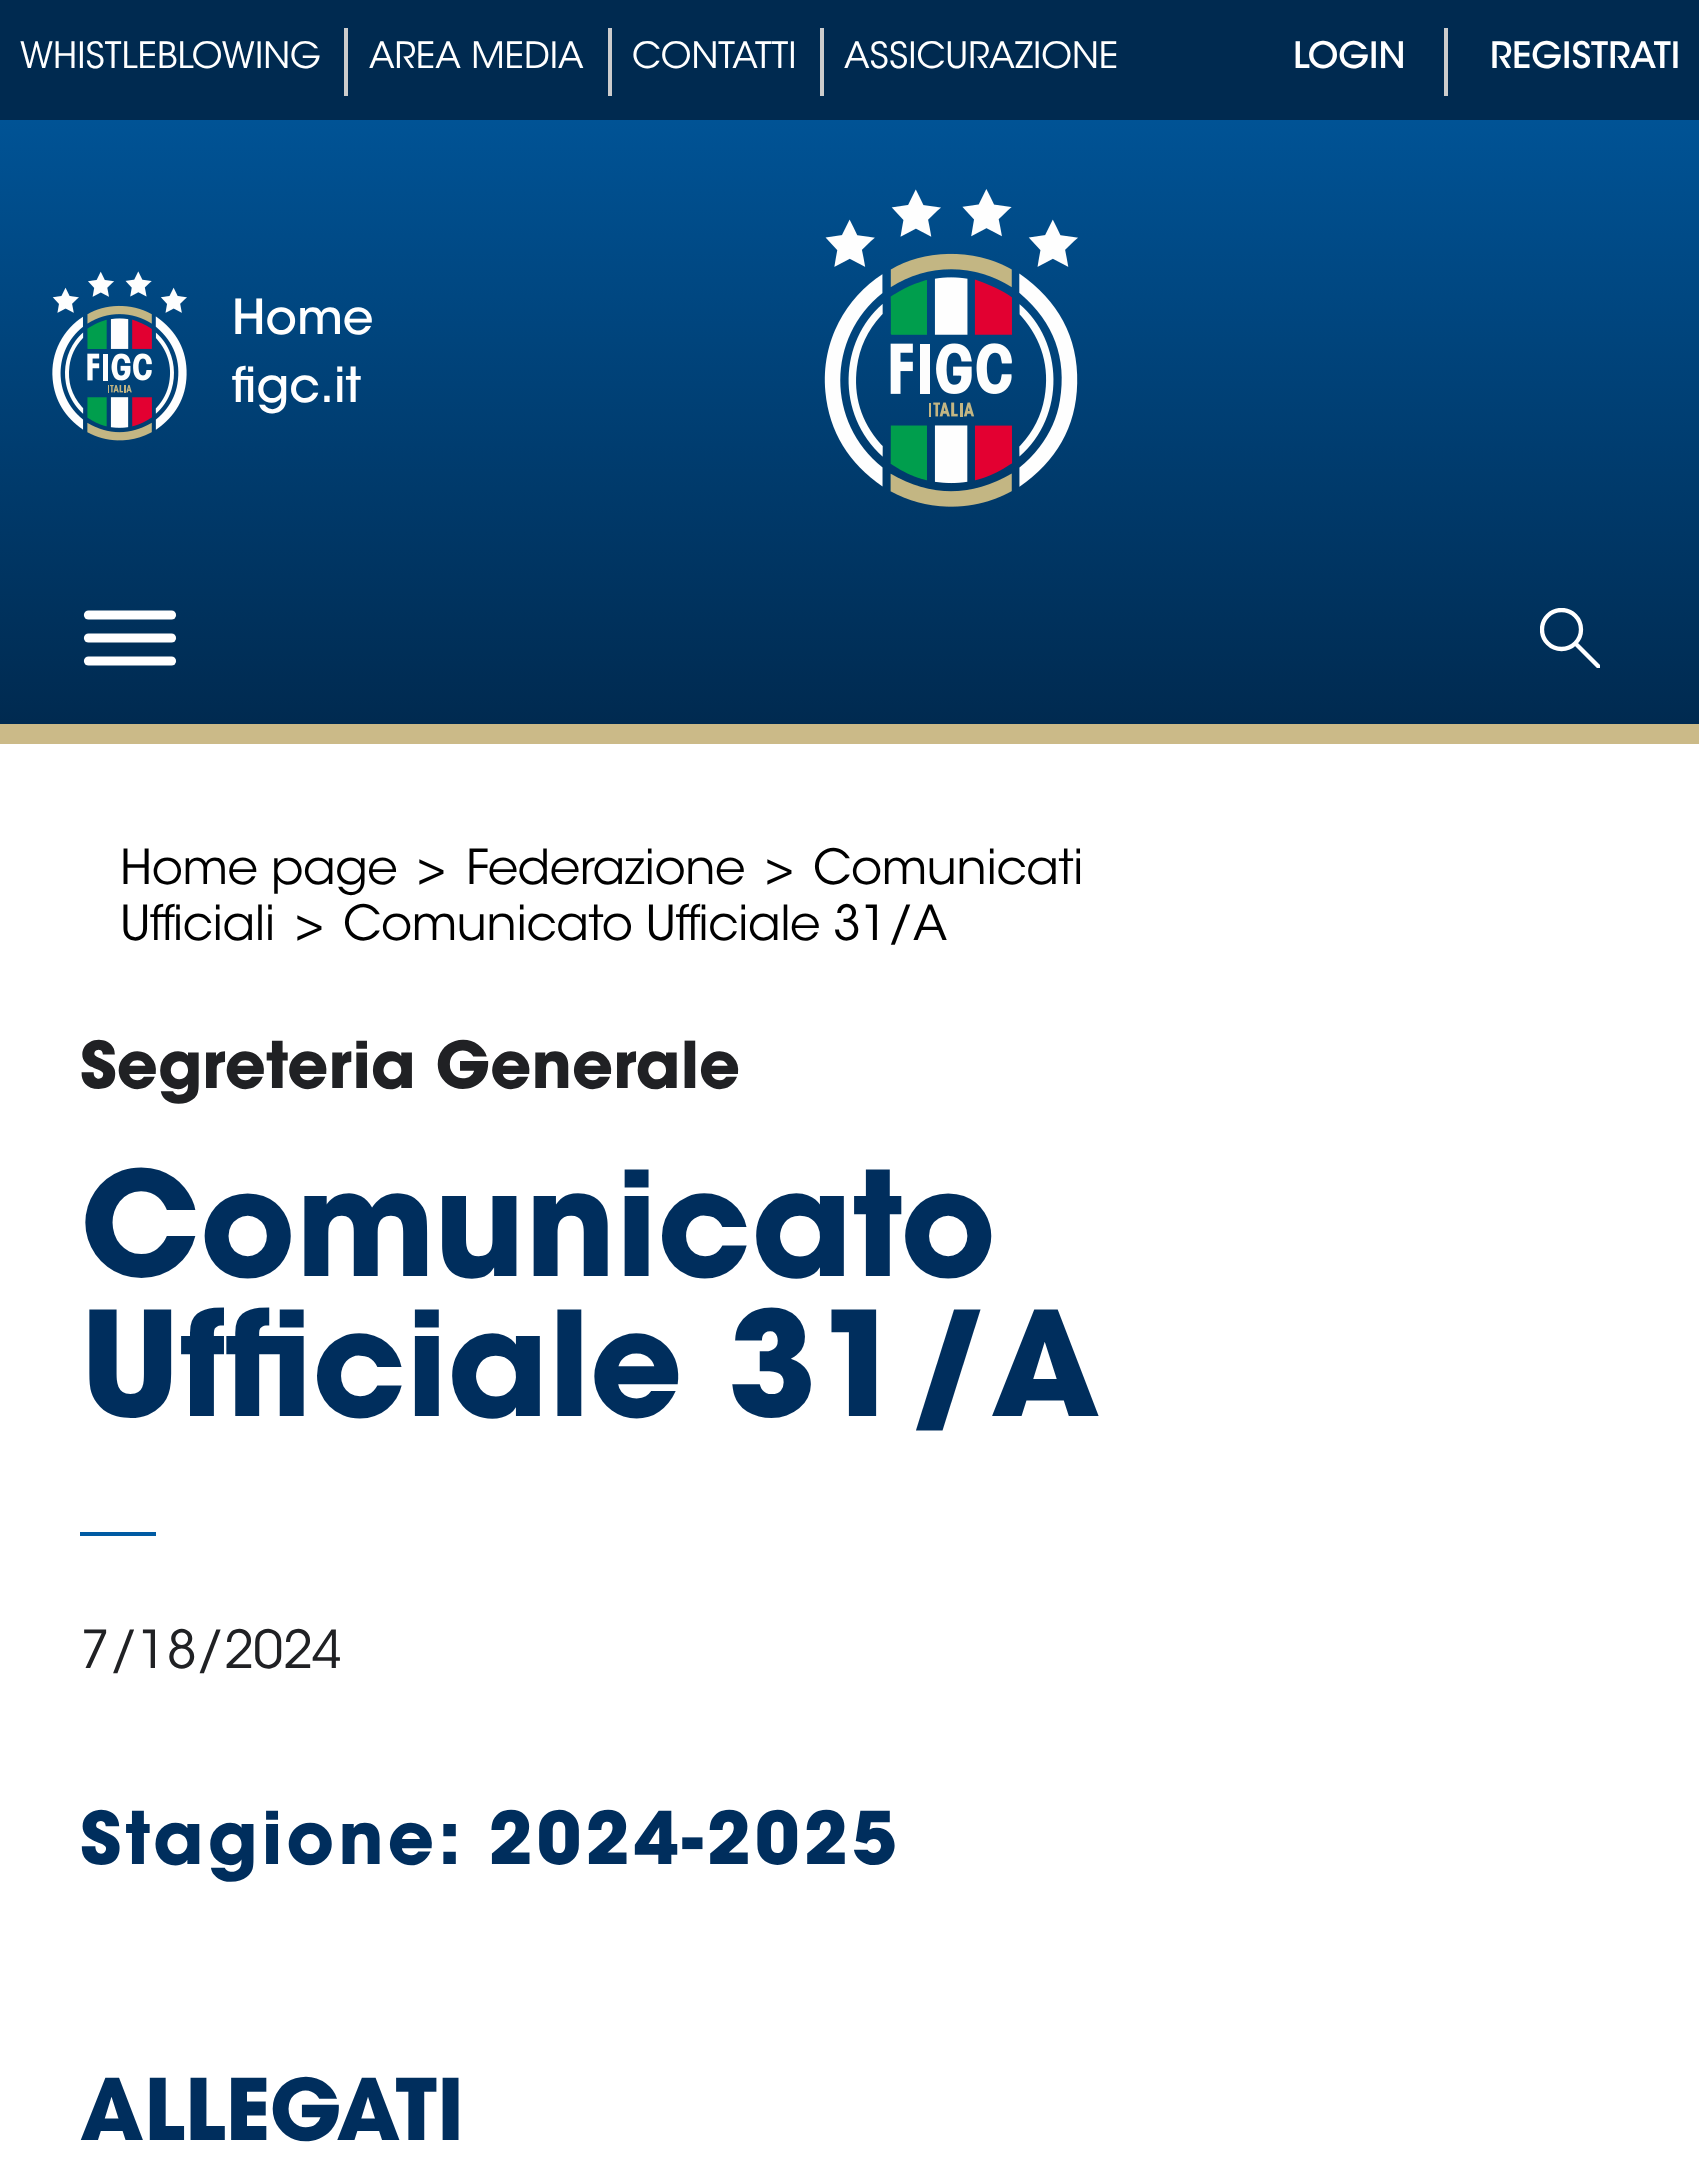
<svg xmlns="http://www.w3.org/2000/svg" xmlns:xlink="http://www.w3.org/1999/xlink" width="1699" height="2160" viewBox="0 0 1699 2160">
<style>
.cls-1{font:300 36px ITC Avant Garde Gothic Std;fill:#ffffff}
.cls-2{font:500 36px ITC Avant Garde Gothic Std;fill:#ffffff}
.cls-3{font:500 48px ITC Avant Garde Gothic Std;fill:#ffffff}
.cls-4{font:300 48px ITC Avant Garde Gothic Std;letter-spacing:-0.5px;fill:#000000}
.cls-5{font:bold 64px ITC Avant Garde Gothic Std;fill:#202124}
.cls-6{font:bold 144px ITC Avant Garde Gothic Std;fill:#002e5d}
.cls-7{font:300 52px ITC Avant Garde Gothic Std;letter-spacing:-0.5px;fill:#202124}
.cls-8{font:bold 72px ITC Avant Garde Gothic Std;letter-spacing:4px;fill:#002e5d}
.cls-9{font:bold 84px ITC Avant Garde Gothic Std;fill:#002e5d}
</style>
<defs>
<linearGradient id="g1" gradientUnits="userSpaceOnUse" x1="850" y1="0" x2="850" y2="724"><stop offset="0" stop-color="#005ba3"/><stop offset="1" stop-color="#002a50"/></linearGradient>
<clipPath id="clip1"><rect x="1540" y="608" width="60" height="60"/></clipPath>
</defs>
<rect width="100%" height="100%" fill="#ffffff"/>
<rect fill="url(#g1)" x="0" y="120" width="1699" height="604"/>
<rect fill="#cbba88" x="0" y="724" width="1699" height="20"/>
<rect fill="#002a50" x="0" y="0" width="1699" height="120"/>
<rect fill="#cccccc" x="344" y="28" width="4" height="68"/>
<rect fill="#cccccc" x="608" y="28" width="4" height="68"/>
<rect fill="#cccccc" x="820" y="28" width="4" height="68"/>
<rect fill="#cccccc" x="1444" y="28" width="4" height="68"/>
<image xlink:href="image0.png" x="52" y="271" width="135" height="170"/>
<image xlink:href="image1.png" x="824" y="189" width="254" height="318"/>
<path fill="none" stroke="#ffffff" stroke-width="9.2" stroke-linecap="round" d="M88.5 615H171.5"/>
<path fill="none" stroke="#ffffff" stroke-width="9.2" stroke-linecap="round" d="M88.5 638H171.5"/>
<path fill="none" stroke="#ffffff" stroke-width="9.2" stroke-linecap="round" d="M88.5 661H171.5"/>
<g clip-path="url(#clip1)">
<circle fill="none" stroke="#ffffff" stroke-width="4.3" cx="1561.5" cy="629.5" r="19.5"/>
<path fill="none" stroke="#ffffff" stroke-width="4.3" stroke-linecap="round" d="M1576.5 644.5L1600 668"/>
</g>
<rect fill="#005ba3" x="80" y="1532" width="76" height="4"/>
<text class="cls-1" x="20" y="68">WHISTLEBLOWING</text>
<text class="cls-1" x="369" y="68">AREA MEDIA</text>
<text class="cls-1" x="632" y="68">CONTATTI</text>
<text class="cls-1" x="844" y="68">ASSICURAZIONE</text>
<text class="cls-2" x="1293" y="68">LOGIN</text>
<text class="cls-2" x="1490" y="68">REGISTRATI</text>
<text class="cls-3"><tspan x="232" y="334">Home</tspan><tspan x="232" y="402">figc.it</tspan></text>
<text class="cls-4" x="120" y="884">Home page</text>
<text class="cls-4" x="417" y="884">&gt;</text>
<text class="cls-4" x="466" y="884">Federazione</text>
<text class="cls-4" x="765" y="884">&gt;</text>
<text class="cls-4" x="813" y="884">Comunicati</text>
<text class="cls-4" x="120" y="940">Ufficiali</text>
<text class="cls-4" x="295" y="940">&gt;</text>
<text class="cls-4" x="343" y="940">Comunicato Ufficiale 31/A</text>
<text class="cls-5" x="80" y="1088">Segreteria Generale</text>
<text class="cls-6"><tspan x="80" y="1276">Comunicato</tspan><tspan x="80" y="1416">Ufficiale 31/A</tspan></text>
<text class="cls-7" x="80" y="1668">7/18/2024</text>
<text class="cls-8" x="80" y="1864">Stagione: 2024-2025</text>
<text class="cls-9" x="80" y="2140">ALLEGATI</text>
</svg>
